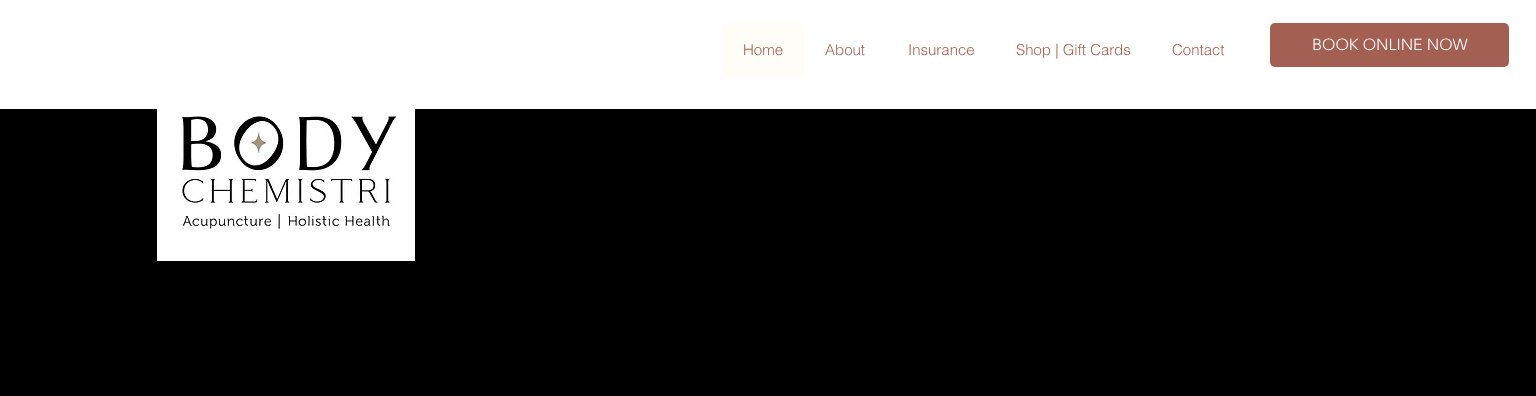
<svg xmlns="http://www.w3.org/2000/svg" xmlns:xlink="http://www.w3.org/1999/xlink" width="1536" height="396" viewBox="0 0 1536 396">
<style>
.cls-1{font:300 15px helvetica;fill:#a45f53}
.cls-2{font:300 16px 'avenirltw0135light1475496';fill:#ffffff}
</style>
<rect width="100%" height="100%" fill="#ffffff"/>
<rect fill="#fffdf7" x="723" y="23" width="81" height="54"/>
<rect fill="#a45f53" x="1270" y="23" width="239" height="44" rx="5"/>
<rect fill="#000000" x="0" y="109" width="1536" height="287"/>
<image xlink:href="image0.png" x="157" y="109" width="258" height="152"/>
<text class="cls-1" x="743" y="55">Home</text>
<text class="cls-1" x="825" y="55">About</text>
<text class="cls-1" x="908" y="55">Insurance</text>
<text class="cls-1" x="1016" y="55">Shop | Gift Cards</text>
<text class="cls-1" x="1172" y="55">Contact</text>
<text class="cls-2" x="1312" y="50">BOOK ONLINE NOW</text>
</svg>
